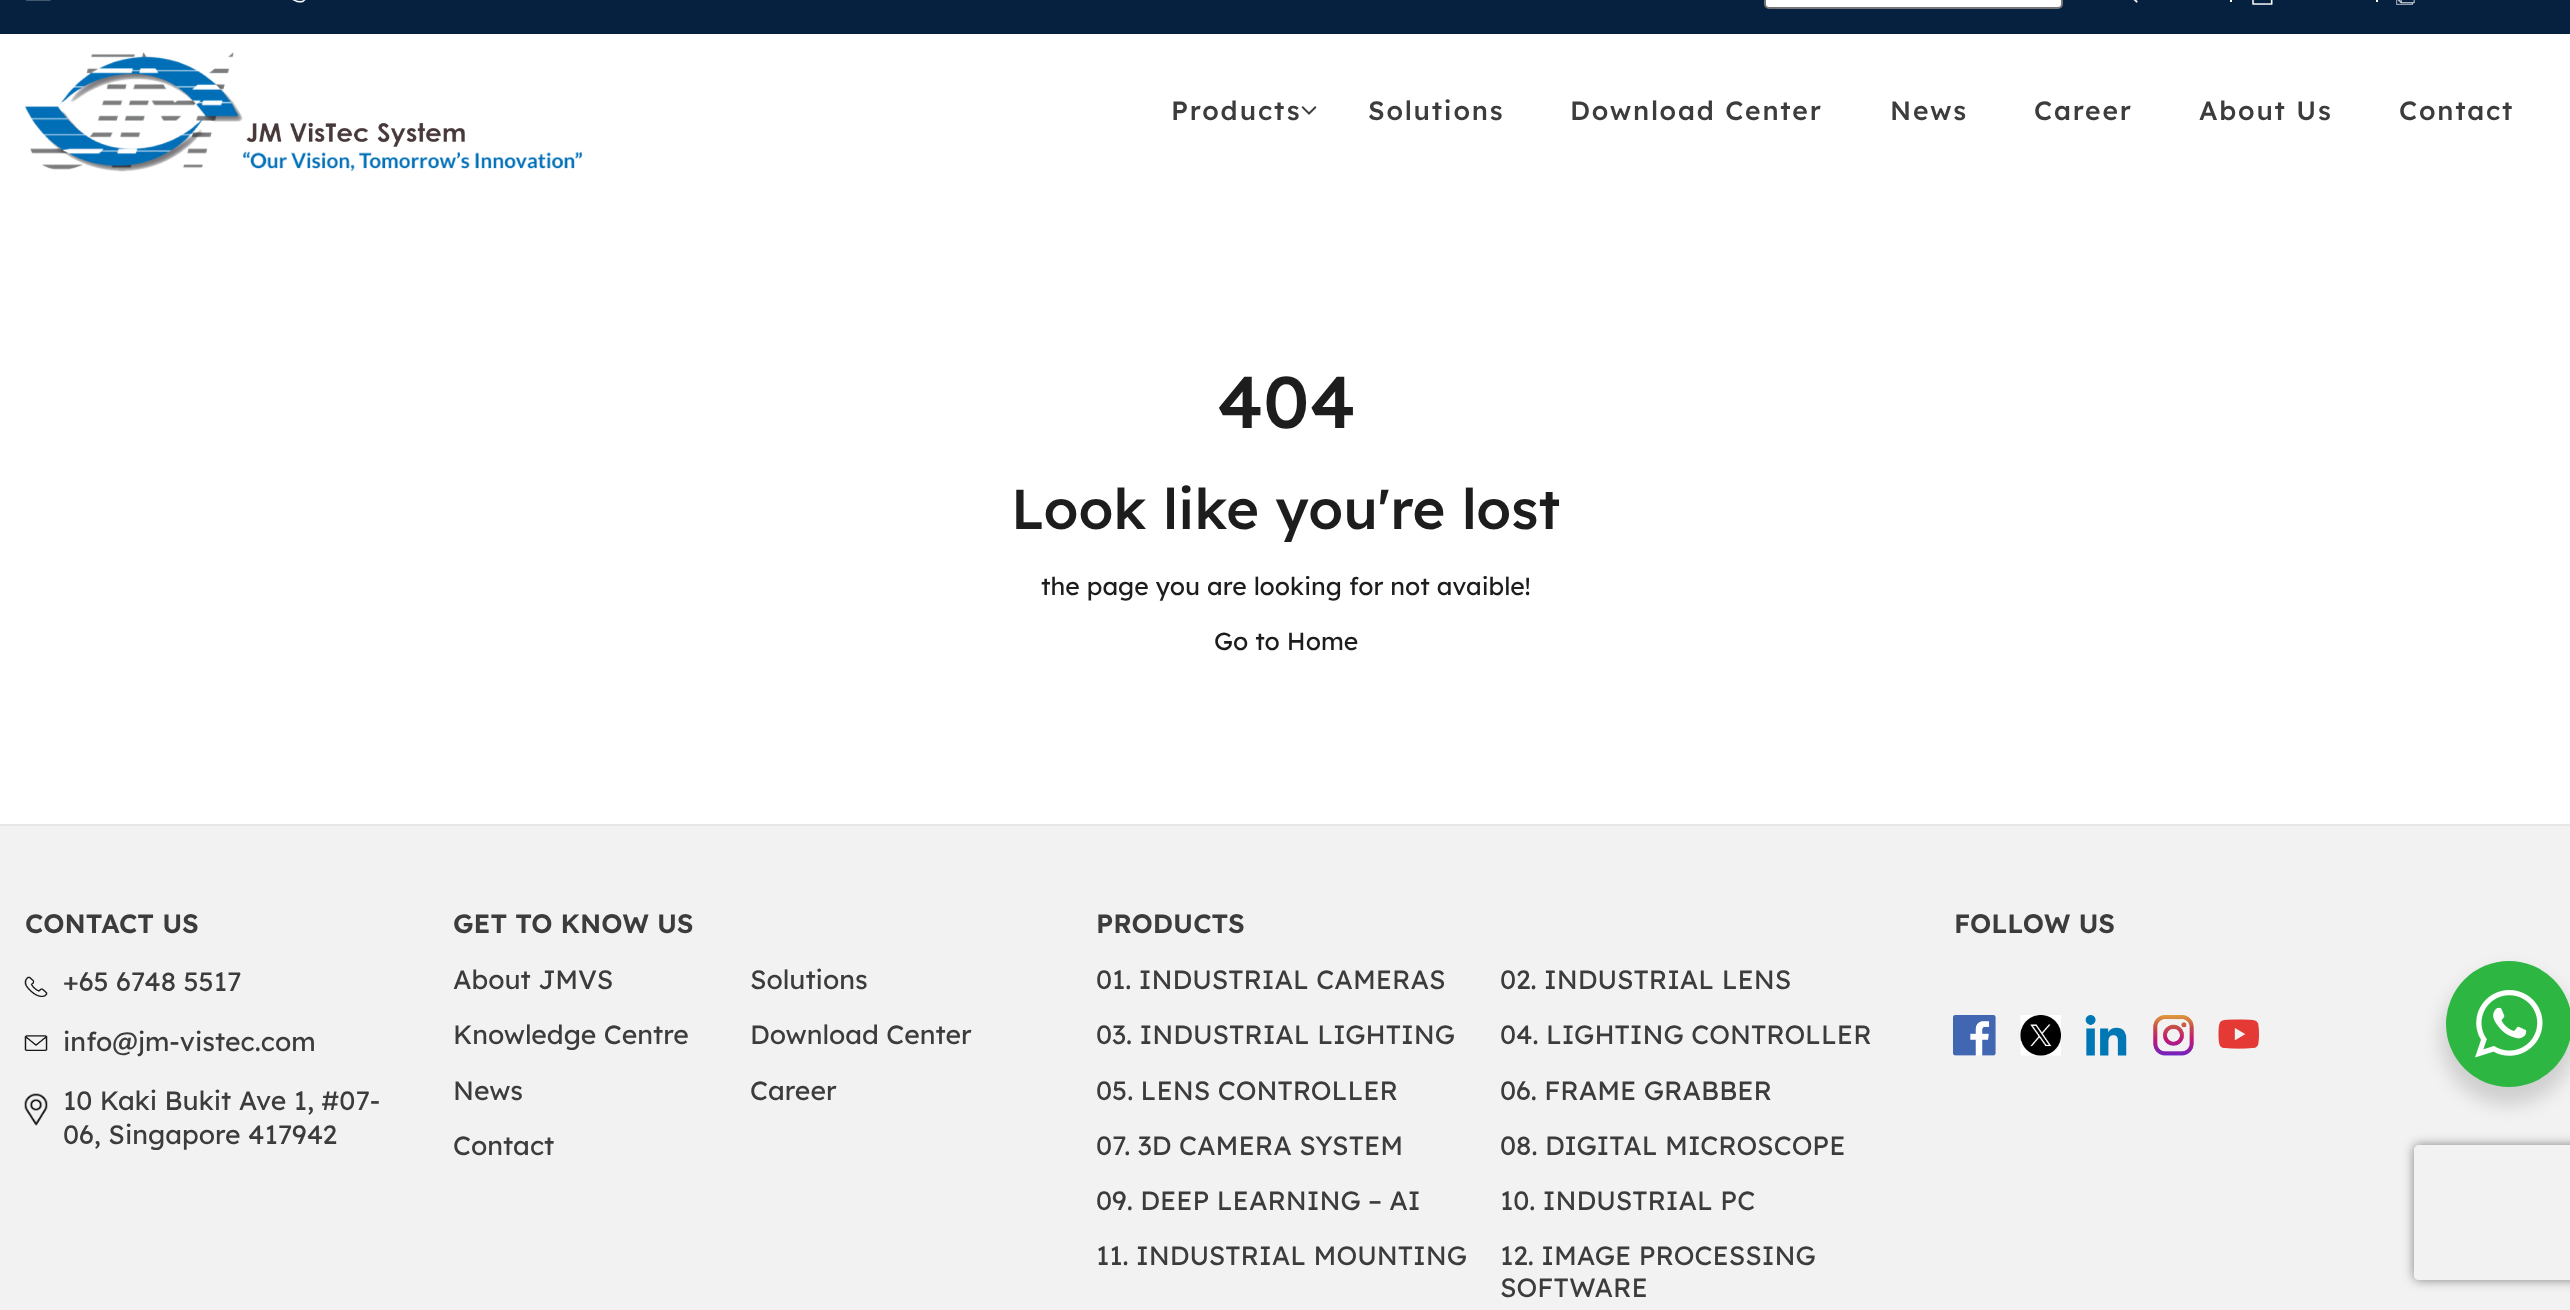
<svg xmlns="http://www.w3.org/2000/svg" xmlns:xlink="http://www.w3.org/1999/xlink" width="2570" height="1310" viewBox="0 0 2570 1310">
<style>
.cls-1{font:500 26.5px Lexend;letter-spacing:1.8px;fill:#3c3c3c}
.cls-2{font:500 73px Lexend;fill:#1d1d1d}
.cls-3{font:500 56px Lexend;fill:#1d1d1d}
.cls-4{font:24.8px Lexend;fill:#1d1d1d}
.cls-5{font:600 26.5px Lexend;fill:#3c3c3c}
.cls-6{font:26.5px Lexend;fill:#3c3c3c}
</style>
<defs>
<clipPath id="clip1"><path d="M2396 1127H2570V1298H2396ZM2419 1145H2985C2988 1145 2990 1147 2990 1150V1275C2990 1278 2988 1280 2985 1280H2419C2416 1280 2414 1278 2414 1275V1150C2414 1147 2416 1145 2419 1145Z" clip-rule="evenodd"/></clipPath>
</defs>
<rect width="100%" height="100%" fill="#ffffff"/>
<rect fill="#062140" x="0" y="0" width="2570" height="34"/>
<image xlink:href="image0.png" x="25" y="0" width="26" height="1"/>
<image xlink:href="image1.png" x="292" y="0" width="14" height="3"/>
<rect fill="#ffffff" stroke="#767676" stroke-width="2" x="1765" y="-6" width="297" height="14" rx="4"/>
<image xlink:href="image2.png" x="2133" y="0" width="5" height="3"/>
<rect fill="#ffffff" x="2230" y="0" width="2" height="2"/>
<image xlink:href="image3.png" x="2252" y="0" width="21" height="5"/>
<rect fill="#ffffff" x="2376" y="0" width="2" height="2"/>
<image xlink:href="image4.png" x="2396" y="0" width="19" height="5"/>
<image xlink:href="image5.png" x="24" y="52" width="559" height="120"/>
<image xlink:href="image6.png" x="1301" y="106" width="16" height="9"/>
<rect fill="#f2f2f2" x="0" y="826" width="2570" height="484"/>
<rect fill="#e7e7e7" x="0" y="824" width="2570" height="2"/>
<image xlink:href="image7.png" x="24" y="976" width="24" height="21"/>
<image xlink:href="image8.png" x="24" y="1035" width="24" height="16"/>
<image xlink:href="image9.png" x="24" y="1093" width="24" height="33"/>
<image xlink:href="image10.png" x="1953" y="1015" width="43" height="41"/>
<image xlink:href="image11.png" x="2020" y="1015" width="41" height="41"/>
<image xlink:href="image12.png" x="2085" y="1015" width="42" height="41"/>
<image xlink:href="image13.png" x="2153" y="1015" width="41" height="41"/>
<image xlink:href="image14.png" x="2218" y="1019" width="41" height="30"/>
<rect fill="#000000" fill-opacity="0.14" filter="blur(9px)" x="2441" y="970" width="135" height="135" rx="67.5"/>
<circle fill="#2db742" cx="2509" cy="1024" r="63"/>
<image xlink:href="image15.png" x="2475" y="990" width="68" height="68"/>
<g clip-path="url(#clip1)">
<rect fill="#808080" filter="blur(5.5px)" x="2414" y="1145" width="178" height="135" rx="5"/>
</g>
<text class="cls-1" x="1171" y="120">Products</text>
<text class="cls-1" x="1368" y="120">Solutions</text>
<text class="cls-1" x="1570" y="120">Download Center</text>
<text class="cls-1" x="1890" y="120">News</text>
<text class="cls-1" x="2034" y="120">Career</text>
<text class="cls-1" x="2199" y="120">About Us</text>
<text class="cls-1" x="2399" y="120">Contact</text>
<text class="cls-2" x="1217" y="428">404</text>
<text class="cls-3" x="1011" y="529">Look like you're lost</text>
<text class="cls-4" x="1041" y="595">the page you are looking for not avaible!</text>
<text class="cls-4" x="1214" y="650">Go to Home</text>
<text class="cls-5" x="25" y="933">CONTACT US</text>
<text class="cls-6" x="63" y="991">+65 6748 5517</text>
<text class="cls-6" x="63" y="1051">info@jm-vistec.com</text>
<text class="cls-6"><tspan x="63" y="1110">10 Kaki Bukit Ave 1, #07-</tspan><tspan x="63" y="1144">06, Singapore 417942</tspan></text>
<text class="cls-5" x="453" y="933">GET TO KNOW US</text>
<text class="cls-6" x="453" y="989">About JMVS</text>
<text class="cls-6" x="750" y="989">Solutions</text>
<text class="cls-6" x="453" y="1044">Knowledge Centre</text>
<text class="cls-6" x="750" y="1044">Download Center</text>
<text class="cls-6" x="453" y="1100">News</text>
<text class="cls-6" x="750" y="1100">Career</text>
<text class="cls-6" x="453" y="1155">Contact</text>
<text class="cls-5" x="1096" y="933">PRODUCTS</text>
<text class="cls-6" x="1096" y="989">01. INDUSTRIAL CAMERAS</text>
<text class="cls-6" x="1500" y="989">02. INDUSTRIAL LENS</text>
<text class="cls-6" x="1096" y="1044">03. INDUSTRIAL LIGHTING</text>
<text class="cls-6" x="1500" y="1044">04. LIGHTING CONTROLLER</text>
<text class="cls-6" x="1096" y="1100">05. LENS CONTROLLER</text>
<text class="cls-6" x="1500" y="1100">06. FRAME GRABBER</text>
<text class="cls-6" x="1096" y="1155">07. 3D CAMERA SYSTEM</text>
<text class="cls-6" x="1500" y="1155">08. DIGITAL MICROSCOPE</text>
<text class="cls-6" x="1096" y="1210">09. DEEP LEARNING – AI</text>
<text class="cls-6" x="1500" y="1210">10. INDUSTRIAL PC</text>
<text class="cls-6" x="1096" y="1265">11. INDUSTRIAL MOUNTING</text>
<text class="cls-6"><tspan x="1500" y="1265">12. IMAGE PROCESSING</tspan><tspan x="1500" y="1297">SOFTWARE</tspan></text>
<text class="cls-5" x="1954" y="933">FOLLOW US</text>
</svg>
